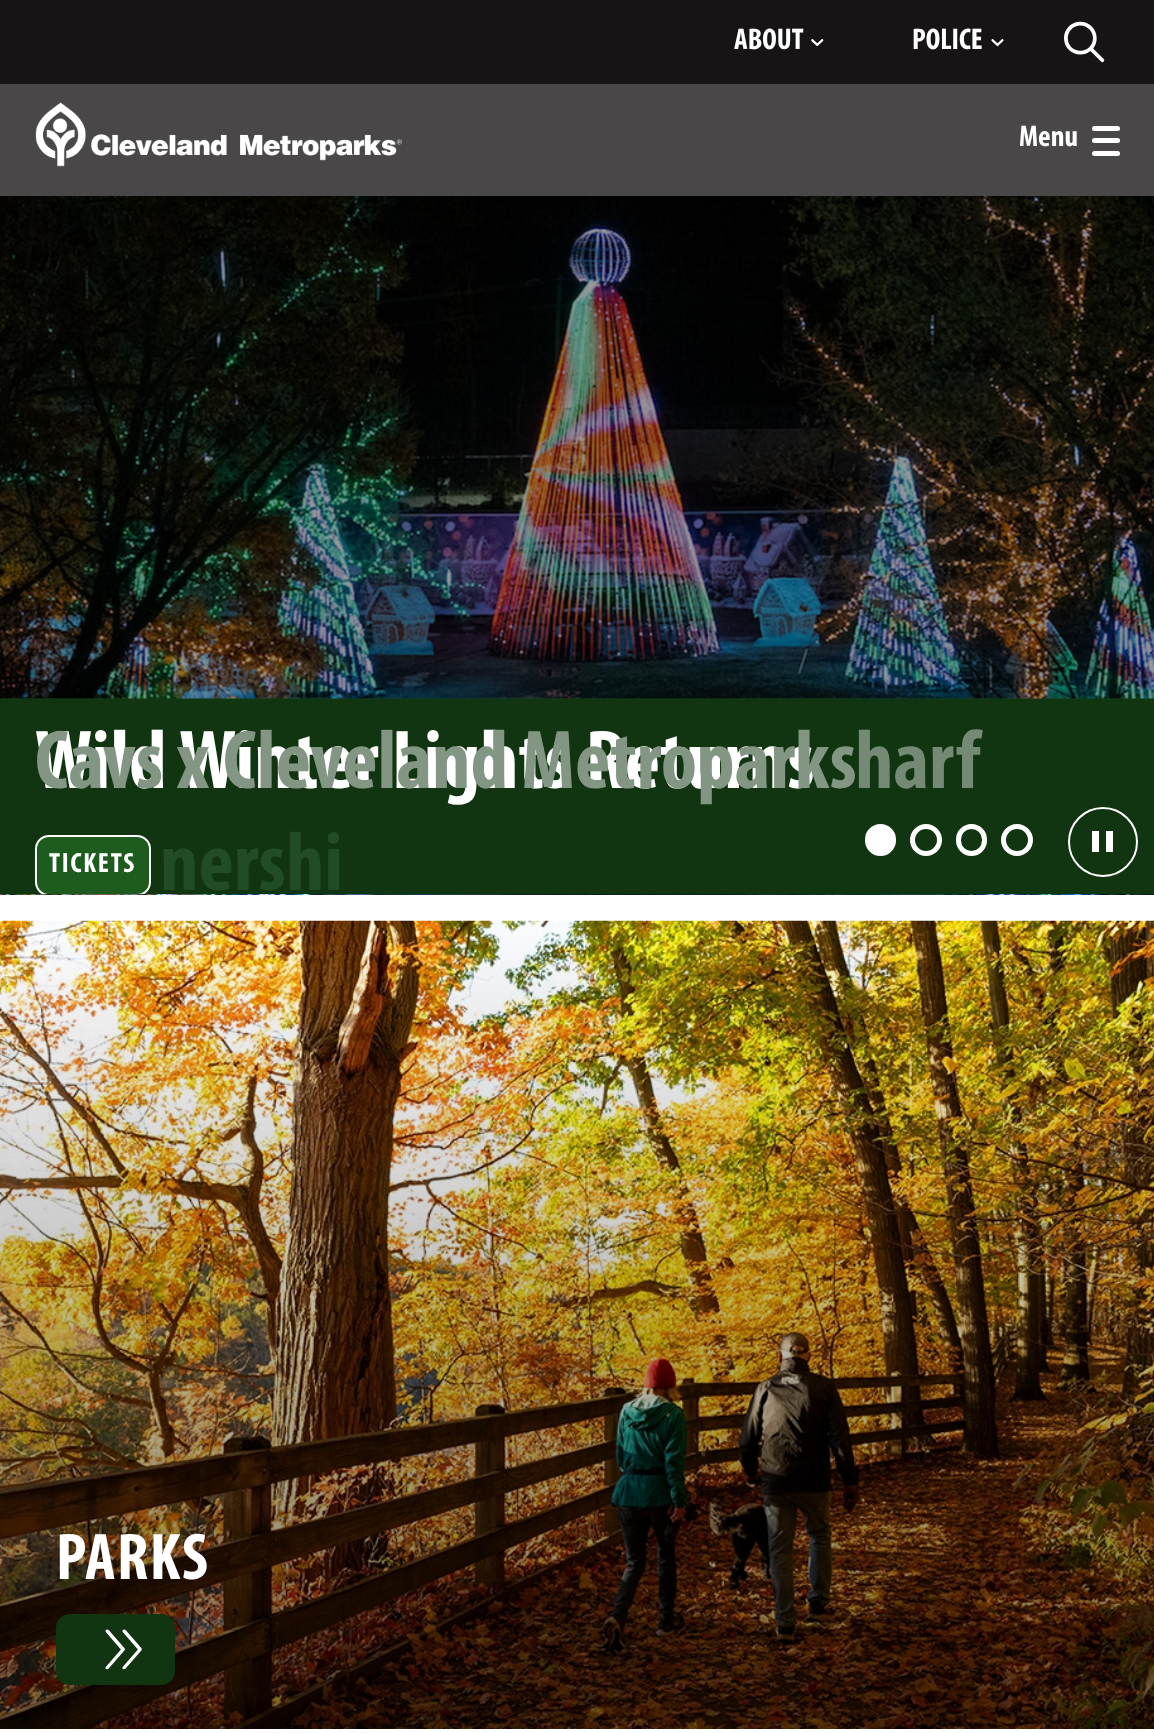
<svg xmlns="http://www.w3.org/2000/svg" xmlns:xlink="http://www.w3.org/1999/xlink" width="1154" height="1733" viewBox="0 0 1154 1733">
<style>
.cls-1{font:bold 30px Myriad;fill:#ffffff}
.cls-2{font:bold 84.1px Myriad;fill:#ffffff}
.cls-3{font:bold 28px Myriad;letter-spacing:1.75px;fill:#ffffff}
.cls-4{font:bold 84.1px Myriad;fill:#839683}
.cls-5{font:bold 84.1px Myriad;fill:#224c23}
.cls-6{font:bold 84.1px Myriad;fill:#758a75}
.cls-7{font:bold 66.5px Myriad;letter-spacing:1.5px;fill:#ffffff}
</style>
<defs>
<clipPath id="clip1"><rect x="0" y="49" width="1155" height="845"/></clipPath>
</defs>
<rect width="100%" height="100%" fill="#ffffff"/>
<rect fill="#171415" x="0" y="0" width="1154" height="84"/>
<image xlink:href="image0.png" x="811" y="39" width="13" height="8"/>
<image xlink:href="image1.png" x="991" y="39" width="13" height="8"/>
<image xlink:href="image2.png" x="1064" y="21" width="41" height="42"/>
<rect fill="#4a4748" x="0" y="84" width="1154" height="112"/>
<image xlink:href="image3.png" x="35" y="102" width="367" height="65"/>
<rect fill="#ffffff" x="1092" y="138" width="28" height="5" rx="2.5"/>
<rect fill="#ffffff" x="1092" y="126" width="28" height="5" rx="2.5"/>
<rect fill="#ffffff" x="1092" y="151" width="28" height="5" rx="2.5"/>
<image xlink:href="image4.png" x="0" y="894" width="1154" height="1"/>
<rect fill="#113511" x="0" y="698" width="1154" height="196"/>
<image xlink:href="image5.png" x="0" y="196" width="1154" height="503"/>
<g clip-path="url(#clip1)">
<rect fill="#1d5c1e" stroke="#ffffff" stroke-width="2" x="36" y="836" width="114" height="59" rx="13"/>
</g>
<rect fill="#ffffff" stroke="#ffffff" stroke-width="5" x="867.5" y="826.5" width="26" height="27" rx="13"/>
<circle fill="none" stroke="#ffffff" stroke-width="5" cx="926" cy="840" r="13.5"/>
<rect fill="none" stroke="#ffffff" stroke-width="5" x="958.5" y="826.5" width="26" height="27" rx="13"/>
<circle fill="none" stroke="#ffffff" stroke-width="5" cx="1017" cy="840" r="13.5"/>
<circle fill="none" stroke="#ffffff" stroke-width="2" cx="1103" cy="842" r="34"/>
<rect fill="#ffffff" x="1092" y="831" width="7" height="21"/>
<rect fill="#ffffff" x="1106" y="831" width="7" height="21"/>
<image xlink:href="image6.png" x="0" y="920" width="1154" height="809"/>
<rect fill="#113511" x="56" y="1614" width="119" height="71" rx="14"/>
<image xlink:href="image7.png" x="105" y="1629" width="37" height="41"/>
<text class="cls-1" x="734" y="49">ABOUT</text>
<text class="cls-1" x="912" y="49">POLICE</text>
<text class="cls-1" x="1019" y="146">Menu</text>
<text class="cls-2" x="35" y="788">Wild Winter Lights Returns</text>
<text class="cls-3" x="49" y="872">TICKETS</text>
<text class="cls-4" x="35" y="788">Cavs x Cleveland Metroparks</text>
<text class="cls-5" x="160" y="890">nershi</text>
<text class="cls-6" x="855" y="788">harf</text>
<text class="cls-7" x="56" y="1579">PARKS</text>
</svg>
